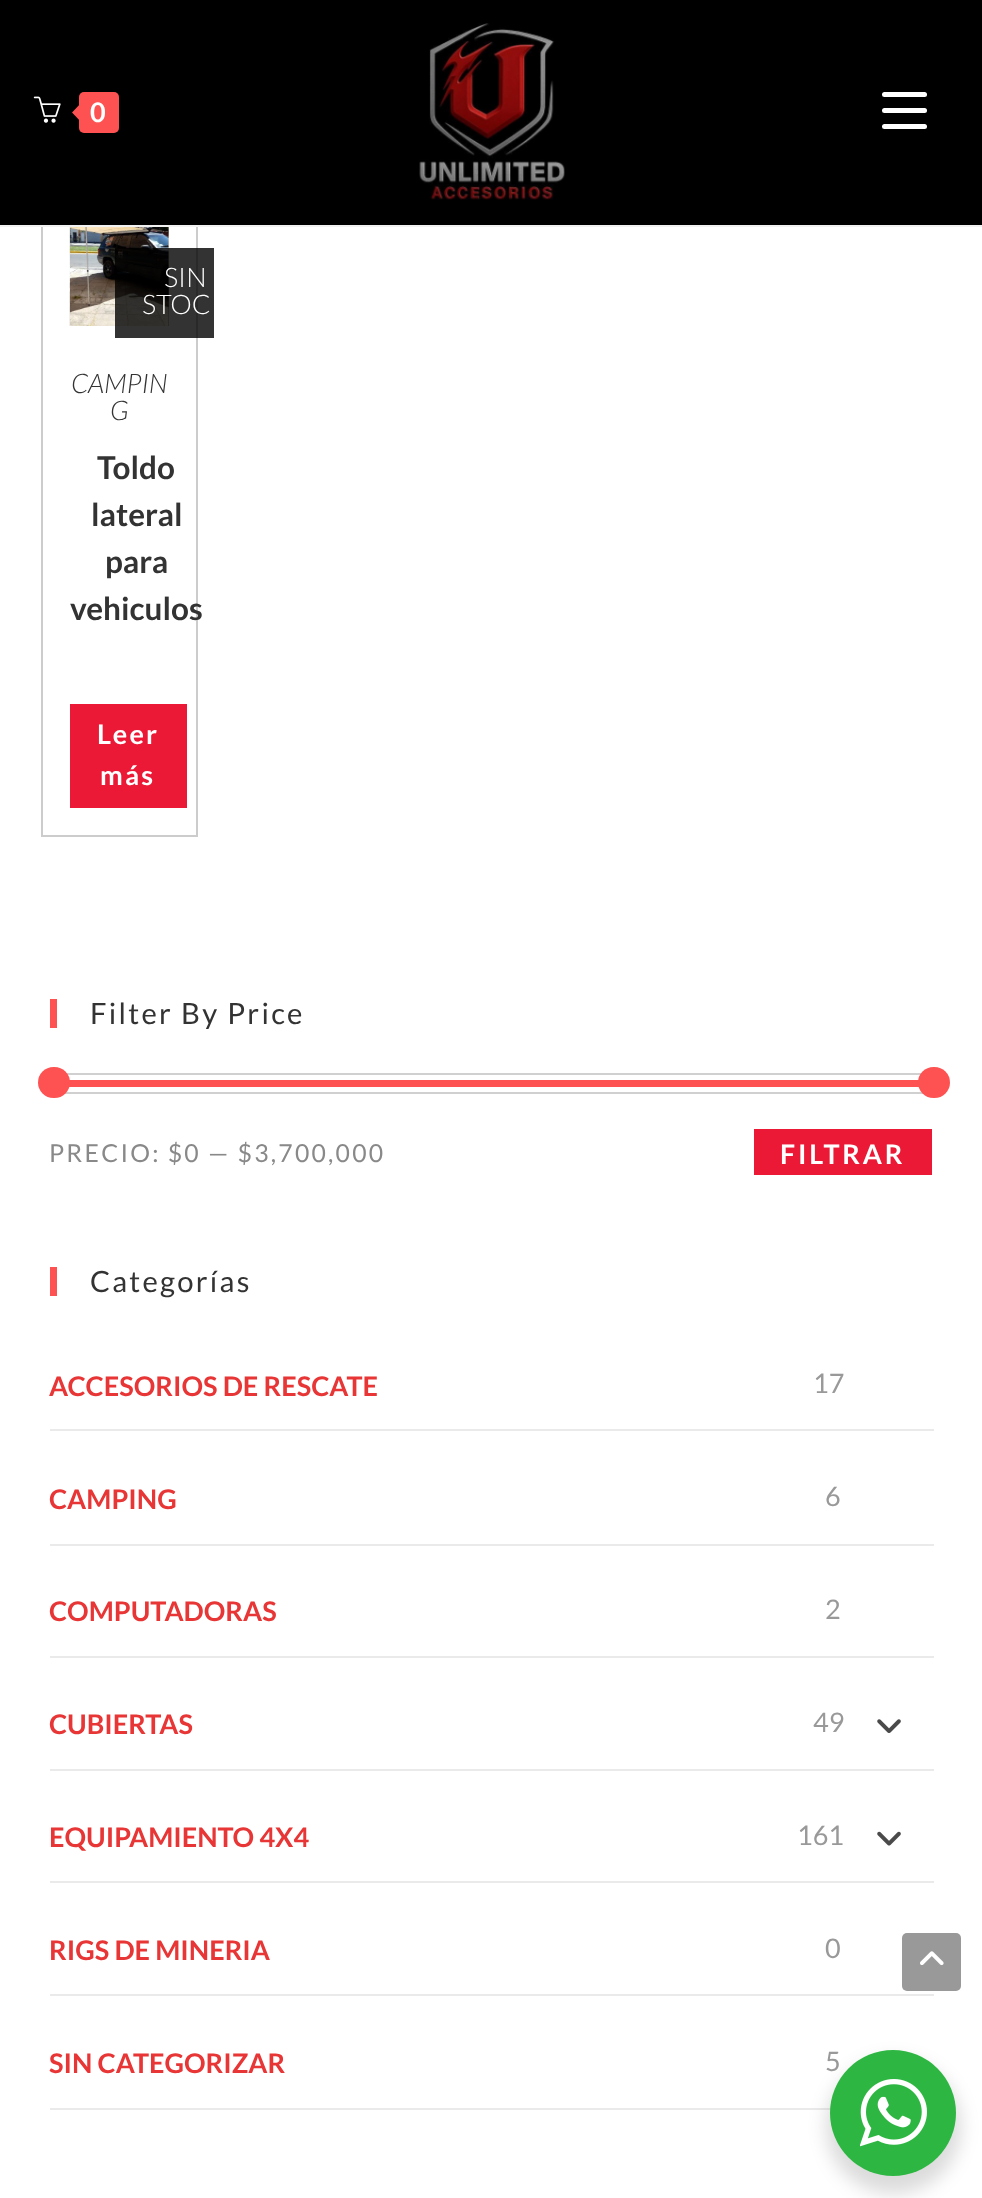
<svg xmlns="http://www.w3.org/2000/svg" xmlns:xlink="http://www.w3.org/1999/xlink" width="982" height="2198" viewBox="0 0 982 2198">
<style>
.cls-1{font:bold 27px Lato;letter-spacing:2.25px;fill:#ffffff}
.cls-2{font:300 27px Lato;fill:#ffffff}
.cls-3{font:italic 300 27px Lato;fill:#333333}
.cls-4{font:bold 31.5px Lato;fill:#333333}
.cls-5{font:29.25px Lato;letter-spacing:2.25px;fill:#333333}
.cls-6{font:24.75px Lato;letter-spacing:2.25px;fill:#898989}
.cls-7{font:bold 27px Lato;letter-spacing:2.75px;fill:#ffffff}
.cls-8{font:bold 27px Lato;fill:#e83535}
.cls-9{font:27px Lato;fill:#999999}
</style>
<rect width="100%" height="100%" fill="#ffffff"/>
<rect fill="none" stroke="#cccccc" stroke-width="2" x="42" y="174" width="155" height="662"/>
<rect fill="#000000" x="0" y="0" width="982" height="225"/>
<rect fill="#f1f1f1" x="0" y="225" width="982" height="2"/>
<image xlink:href="image0.png" x="33" y="96" width="28" height="27"/>
<rect fill="#fe5252" x="79" y="92" width="40" height="41" rx="5"/>
<path fill="#fe5252" d="M83 101V124L72 112.5Z"/>
<image xlink:href="image1.png" x="419" y="23" width="146" height="177"/>
<rect fill="#ffffff" x="882" y="124" width="45" height="5" rx="2.5"/>
<rect fill="#ffffff" x="882" y="92" width="45" height="5" rx="2.5"/>
<rect fill="#ffffff" x="882" y="108" width="45" height="5" rx="2.5"/>
<image xlink:href="image2.png" x="69" y="227" width="100" height="99"/>
<image xlink:href="image3.png" x="69" y="227" width="100" height="99"/>
<rect fill="#000000" fill-opacity="0.8" x="115" y="248" width="99" height="90"/>
<rect fill="#eb1936" x="70" y="704" width="117" height="104"/>
<rect fill="#fe5252" x="50" y="999" width="7" height="29"/>
<rect fill="none" stroke="#d0d0d0" stroke-width="2" x="51" y="1074" width="882" height="19"/>
<rect fill="#fe5252" x="69" y="1080" width="850" height="7"/>
<rect fill="#fe5252" x="38" y="1067" width="32" height="31" rx="15.5"/>
<rect fill="#fe5252" x="918" y="1067" width="32" height="31" rx="15.5"/>
<rect fill="#eb1936" x="754" y="1129" width="178" height="46"/>
<rect fill="#fe5252" x="50" y="1267" width="7" height="29"/>
<rect fill="#eaeaea" x="50" y="1429" width="884" height="2"/>
<rect fill="#eaeaea" x="50" y="1544" width="884" height="2"/>
<rect fill="#eaeaea" x="50" y="1656" width="884" height="2"/>
<rect fill="#eaeaea" x="50" y="1769" width="884" height="2"/>
<image xlink:href="image4.png" x="877" y="1719" width="24" height="14"/>
<rect fill="#eaeaea" x="50" y="1881" width="884" height="2"/>
<image xlink:href="image5.png" x="877" y="1831" width="24" height="15"/>
<rect fill="#eaeaea" x="50" y="1994" width="884" height="2"/>
<rect fill="#eaeaea" x="50" y="2108" width="781" height="2"/>
<rect fill="#999999" x="902" y="1933" width="59" height="58" rx="5"/>
<image xlink:href="image6.png" x="920" y="1951" width="24" height="15"/>
<rect fill="#000000" fill-opacity="0.14" filter="blur(9px)" x="826" y="2059" width="135" height="135" rx="67.5"/>
<text class="cls-1" x="90" y="122">0</text>
<text class="cls-2" x="164" y="287">SIN</text>
<text class="cls-2" x="142" y="314">STOC</text>
<text class="cls-3" x="71" y="393">CAMPIN</text>
<text class="cls-3" x="110" y="420">G</text>
<text class="cls-4" x="97" y="479">Toldo</text>
<text class="cls-4" x="91" y="526">lateral</text>
<text class="cls-4" x="105" y="573">para</text>
<text class="cls-4" x="70" y="620">vehiculos</text>
<text class="cls-1" x="97" y="744">Leer</text>
<text class="cls-1" x="100" y="785">más</text>
<text class="cls-5" x="90" y="1024">Filter By Price</text>
<text class="cls-6" x="49" y="1162">PRECIO: $0 — $3,700,000</text>
<text class="cls-7" x="780" y="1164">FILTRAR</text>
<text class="cls-5" x="90" y="1292">Categorías</text>
<text class="cls-8" x="49" y="1396">ACCESORIOS DE RESCATE</text>
<text class="cls-9" x="813" y="1393">17</text>
<text class="cls-8" x="49" y="1509">CAMPING</text>
<text class="cls-9" x="825" y="1506">6</text>
<text class="cls-8" x="49" y="1621">COMPUTADORAS</text>
<text class="cls-9" x="825" y="1619">2</text>
<text class="cls-8" x="49" y="1734">CUBIERTAS</text>
<text class="cls-9" x="813" y="1732">49</text>
<text class="cls-8" x="49" y="1847">EQUIPAMIENTO 4X4</text>
<text class="cls-9" x="797" y="1845">161</text>
<text class="cls-8" x="49" y="1960">RIGS DE MINERIA</text>
<text class="cls-9" x="825" y="1958">0</text>
<text class="cls-8" x="49" y="2073">SIN CATEGORIZAR</text>
<text class="cls-9" x="825" y="2071">5</text>
<circle fill="#2db742" cx="893" cy="2113" r="63"/>
<image xlink:href="image7.png" x="860" y="2079" width="67" height="68"/>
</svg>
